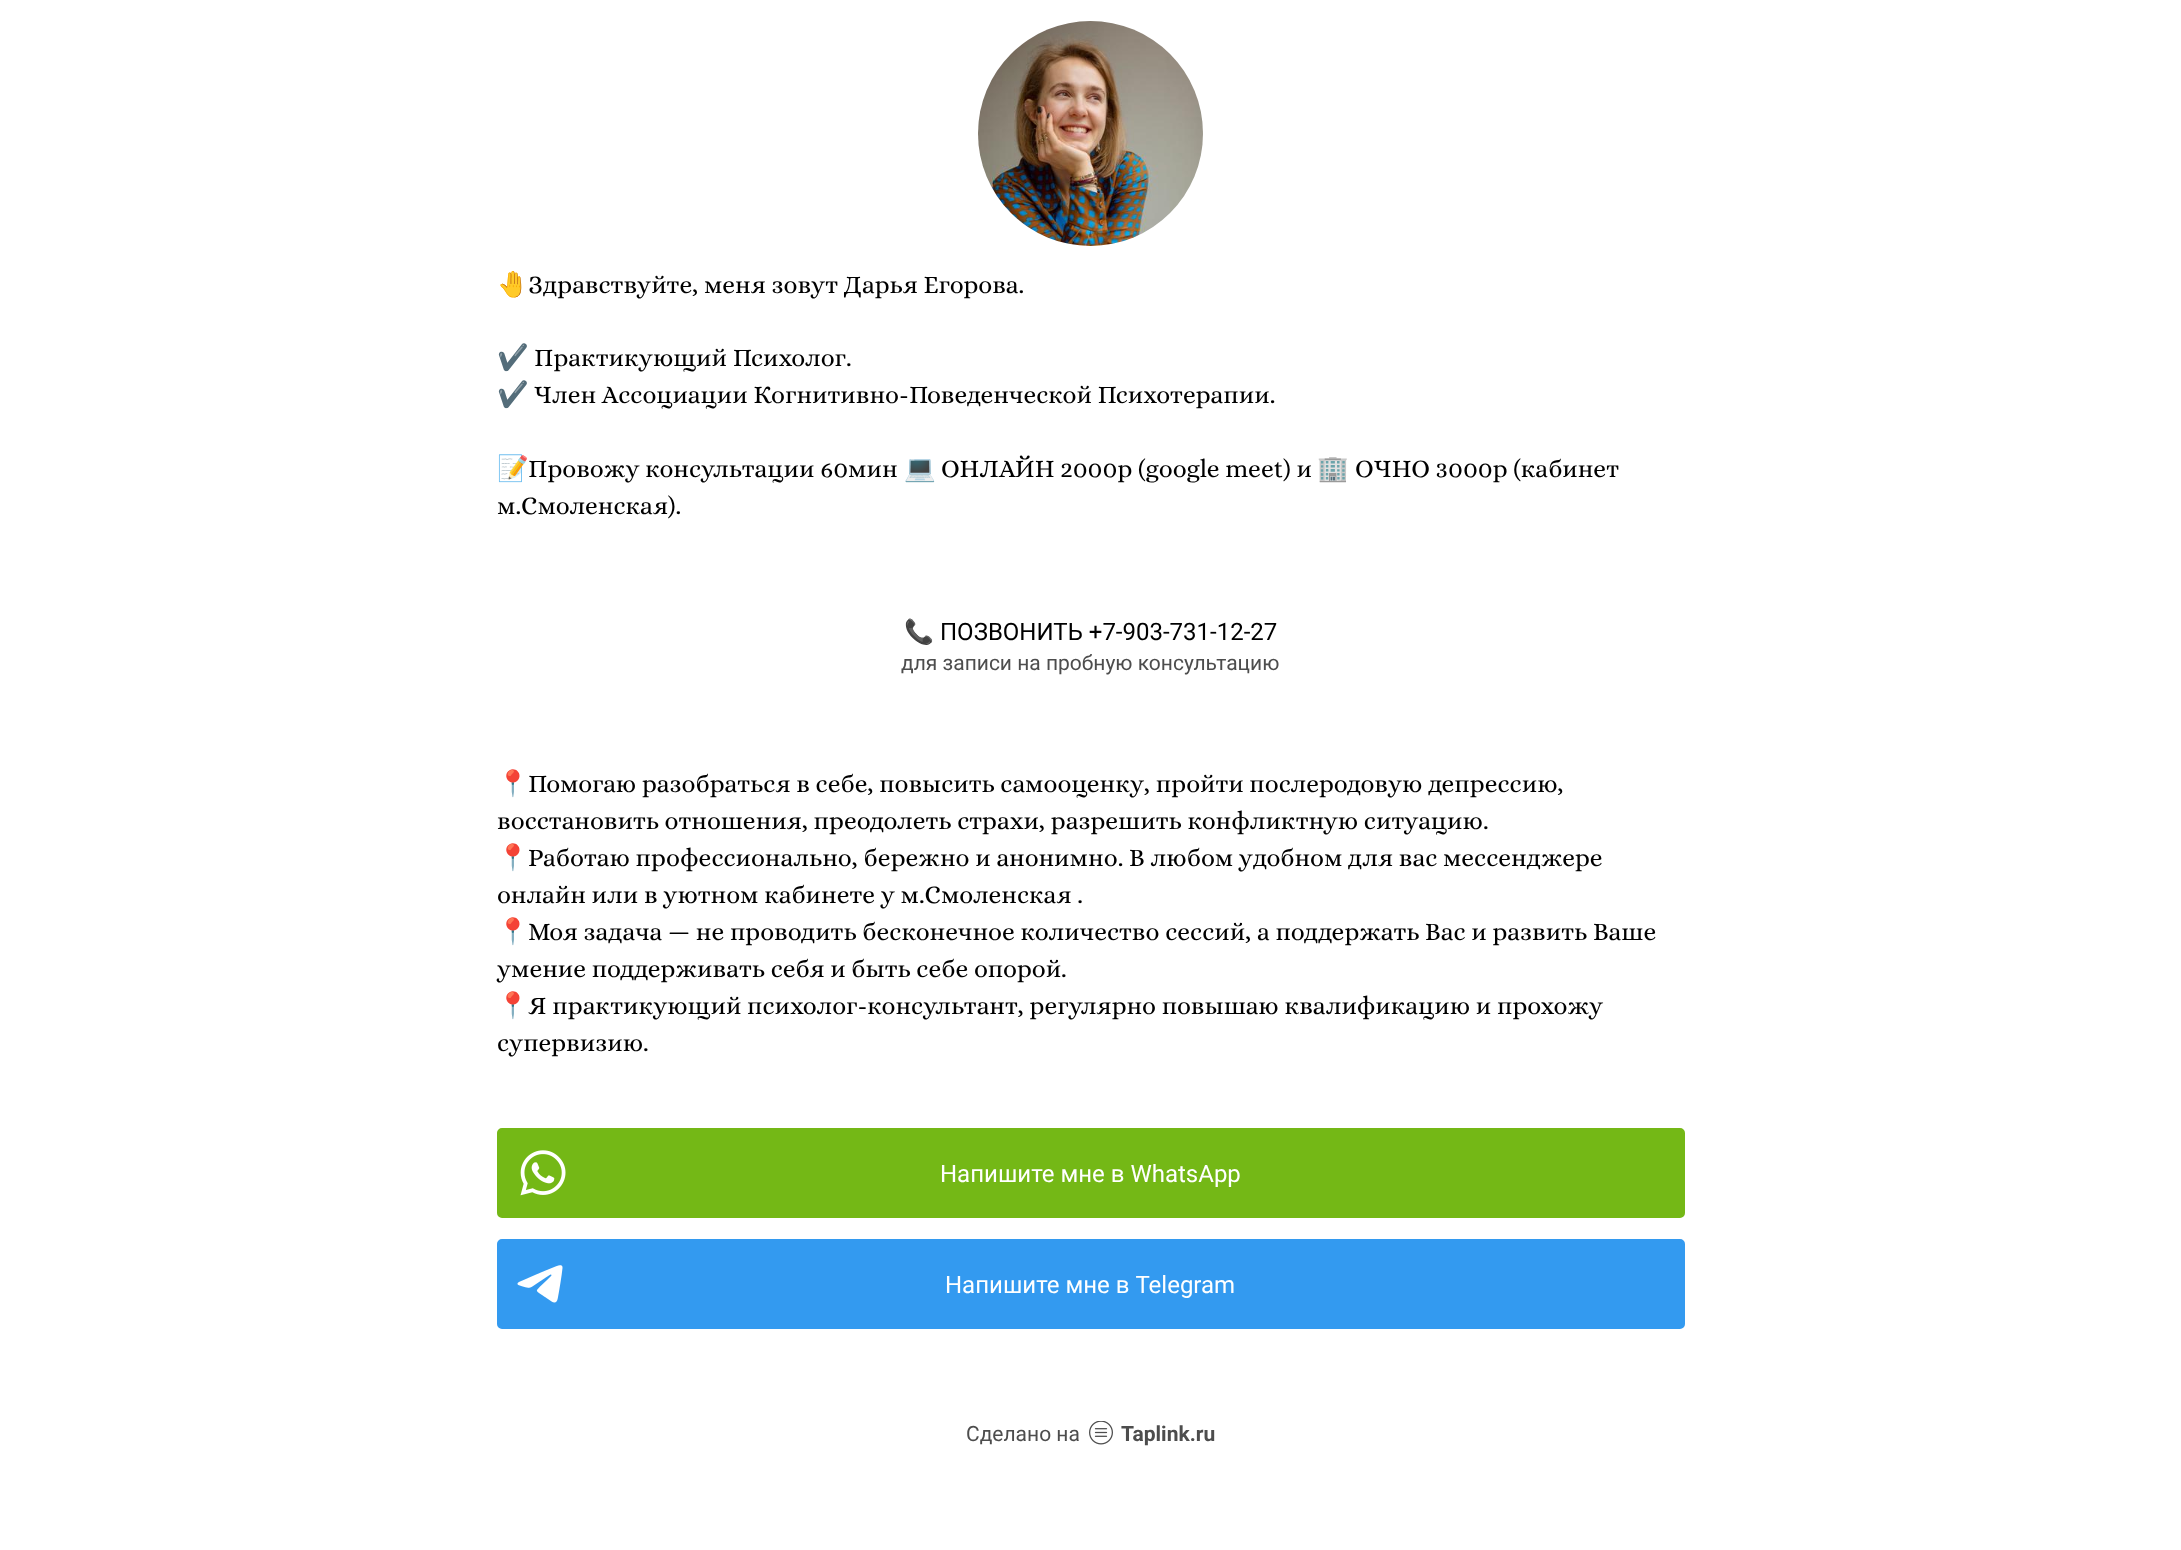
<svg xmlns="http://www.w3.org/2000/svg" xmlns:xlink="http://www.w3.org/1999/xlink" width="2181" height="1550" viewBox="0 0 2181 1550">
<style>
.cls-1{font:25.5px Noto Color Emoji;fill:#000000}
.cls-2{font:25.5px Alice;fill:#000000}
.cls-3{font:24px 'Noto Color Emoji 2';fill:#000000}
.cls-4{font:24px Roboto;fill:#000000}
.cls-5{font:21px Roboto;fill:#4d4d4d}
.cls-6{font:24px Roboto;fill:#ffffff}
.cls-7{font:bold 21px Roboto;fill:#4d4d4d}
</style>
<rect width="100%" height="100%" fill="#ffffff"/>
<image xlink:href="image0.png" x="978" y="21" width="225" height="225"/>
<rect fill="#74b816" stroke="#74b816" stroke-width="3" x="498.5" y="1129.5" width="1185" height="87" rx="3.5"/>
<image xlink:href="image1.png" x="520" y="1150" width="46" height="46"/>
<rect fill="#339af0" stroke="#339af0" stroke-width="3" x="498.5" y="1240.5" width="1185" height="87" rx="3.5"/>
<image xlink:href="image2.png" x="517" y="1265" width="46" height="38"/>
<image xlink:href="image3.png" x="1089" y="1421" width="24" height="24"/>
<text class="cls-1" x="497" y="293">🤚</text>
<text class="cls-2" x="528" y="293">Здравствуйте, меня зовут Дарья Егорова.</text>
<text class="cls-1" x="497" y="366">✔️</text>
<text class="cls-2" x="534" y="366">Практикующий Психолог.</text>
<text class="cls-1" x="497" y="403">✔️</text>
<text class="cls-2" x="534" y="403">Член Ассоциации Когнитивно-Поведенческой Психотерапии.</text>
<text class="cls-1" x="497" y="477">📝</text>
<text class="cls-2" x="528" y="477">Провожу консультации 60мин</text>
<text class="cls-1" x="904" y="477">💻</text>
<text class="cls-2" x="941" y="477">ОНЛАЙН 2000р (google meet) и</text>
<text class="cls-1" x="1317" y="477">🏢</text>
<text class="cls-2" x="1355" y="477">ОЧНО 3000р (кабинет</text>
<text class="cls-2" x="497" y="514">м.Смоленская).</text>
<text class="cls-3" x="904" y="640">📞</text>
<text class="cls-4" x="940" y="640">ПОЗВОНИТЬ +7-903-731-12-27</text>
<text class="cls-5" x="901" y="670">для записи на пробную консультацию</text>
<text class="cls-1" x="497" y="792">📍</text>
<text class="cls-2" x="528" y="792">Помогаю разобраться в себе, повысить самооценку, пройти послеродовую депрессию,</text>
<text class="cls-2" x="497" y="829">восстановить отношения, преодолеть страхи, разрешить конфликтную ситуацию.</text>
<text class="cls-1" x="497" y="866">📍</text>
<text class="cls-2" x="528" y="866">Работаю профессионально, бережно и анонимно. В любом удобном для вас мессенджере</text>
<text class="cls-2" x="497" y="903">онлайн или в уютном кабинете у м.Смоленская .</text>
<text class="cls-1" x="497" y="940">📍</text>
<text class="cls-2" x="528" y="940">‌Моя задача — не проводить бесконечное количество сессий, а поддержать Вас и развить Ваше</text>
<text class="cls-2" x="497" y="977">умение поддерживать себя и быть себе опорой.</text>
<text class="cls-1" x="497" y="1014">📍</text>
<text class="cls-2" x="528" y="1014">Я практикующий психолог-консультант, регулярно повышаю квалификацию и прохожу</text>
<text class="cls-2" x="497" y="1051">супервизию.</text>
<text class="cls-6" x="940" y="1182">Напишите мне в WhatsApp</text>
<text class="cls-6" x="945" y="1293">Напишите мне в Telegram</text>
<text class="cls-5" x="966" y="1441">Сделано на</text>
<text class="cls-7" x="1121" y="1441">Taplink.ru</text>
</svg>
